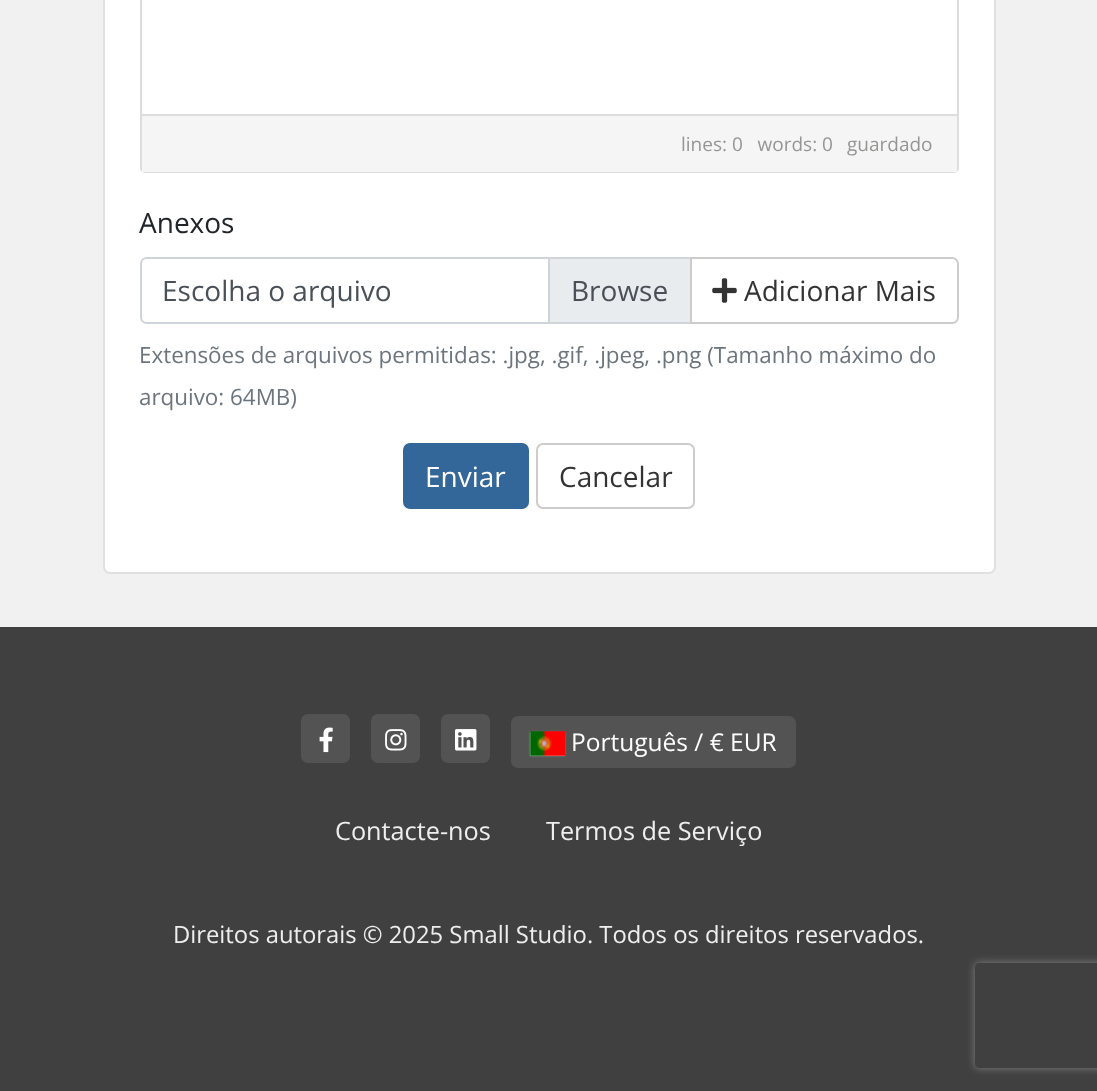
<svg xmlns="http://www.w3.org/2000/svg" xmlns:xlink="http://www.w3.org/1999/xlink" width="1097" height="1091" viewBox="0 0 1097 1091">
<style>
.cls-1{font:19px Open Sans;fill:#959694}
.cls-2{font:28px Open Sans;fill:#212529}
.cls-3{font:28px Open Sans;fill:#495057}
.cls-4{font:28px Open Sans;fill:#333333}
.cls-5{font:22.4px Open Sans;fill:#6c757d}
.cls-6{font:28px Open Sans;fill:#ffffff}
.cls-7{font:24.5px Open Sans;fill:#ffffff}
.cls-8{font:25.25px Open Sans;fill:#eeeeee}
.cls-9{font:23.8px Open Sans;fill:#eeeeee}
</style>
<defs>
<clipPath id="clip1"><path d="M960 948H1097V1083H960ZM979 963H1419C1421 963 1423 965 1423 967V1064C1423 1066 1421 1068 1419 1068H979C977 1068 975 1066 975 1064V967C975 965 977 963 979 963Z" clip-rule="evenodd"/></clipPath>
</defs>
<rect width="100%" height="100%" fill="#f1f1f1"/>
<rect fill="#ffffff" x="103" y="-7" width="893" height="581" rx="7"/>
<rect fill="none" stroke="#000000" stroke-opacity="0.12" stroke-width="2" x="104" y="-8" width="891" height="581" rx="6"/>
<rect fill="none" stroke="#dddddd" stroke-width="2" x="141" y="-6" width="817" height="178" rx="4"/>
<rect fill="#dddddd" x="142" y="114" width="815" height="2"/>
<rect fill="#f5f5f5" x="142" y="116" width="815" height="56"/>
<path fill="none" stroke="#ced4da" stroke-width="2" d="M147 258H690V323H147C143.5 323 141 320.5 141 317V264C141 260.5 143.5 258 147 258Z"/>
<rect fill="#e9ecef" x="550" y="259" width="140" height="63"/>
<rect fill="#ced4da" x="548" y="259" width="2" height="63"/>
<path fill="#ffffff" stroke="#cccccc" stroke-width="2" d="M691 258H952C955.5 258 958 260.5 958 264V317C958 320.5 955.5 323 952 323H691Z"/>
<image xlink:href="image0.png" x="712" y="278" width="25" height="25"/>
<rect fill="#336699" stroke="#336699" stroke-width="2" x="404" y="444" width="124" height="64" rx="6"/>
<rect fill="none" stroke="#cccccc" stroke-width="2" x="537" y="444" width="157" height="64" rx="6"/>
<rect fill="#404040" x="0" y="627" width="1097" height="464"/>
<g clip-path="url(#clip1)">
<rect fill="#808080" filter="blur(4.5px)" x="975" y="963" width="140" height="105" rx="4"/>
</g>
<rect fill="#535353" x="301" y="714" width="49" height="49" rx="7"/>
<image xlink:href="image1.png" x="319" y="727" width="14" height="26"/>
<rect fill="#535353" x="371" y="714" width="49" height="49" rx="7"/>
<image xlink:href="image2.png" x="385" y="729" width="22" height="22"/>
<rect fill="#535353" x="441" y="714" width="49" height="49" rx="7"/>
<image xlink:href="image3.png" x="455" y="729" width="22" height="22"/>
<rect fill="#535353" x="511" y="716" width="285" height="52" rx="7"/>
<rect fill="#888888" filter="blur(1px)" x="530" y="732" width="35" height="24"/>
<rect fill="#dbdbdb" x="530" y="732" width="35" height="24"/>
<image xlink:href="image4.png" x="530" y="731" width="36" height="25"/>
<text class="cls-1" xml:space="preserve" x="681" y="151">lines: 0   words: 0</text>
<text class="cls-1" x="847" y="151">guardado</text>
<text class="cls-2" x="139" y="233">Anexos</text>
<text class="cls-3" x="162" y="301">Escolha o arquivo</text>
<text class="cls-3" x="571" y="301">Browse</text>
<text class="cls-4" x="744" y="301">Adicionar Mais</text>
<text class="cls-5"><tspan x="139" y="363">Extensões de arquivos permitidas: .jpg, .gif, .jpeg, .png (Tamanho máximo do</tspan><tspan x="139" y="405">arquivo: 64MB)</tspan></text>
<text class="cls-6" x="425" y="487">Enviar</text>
<text class="cls-4" x="559" y="487">Cancelar</text>
<text class="cls-7" x="571" y="751">Português / € EUR</text>
<text class="cls-8" x="335" y="840">Contacte-nos</text>
<text class="cls-8" x="546" y="840">Termos de Serviço</text>
<text class="cls-9" x="173" y="943">Direitos autorais © 2025 Small Studio. Todos os direitos reservados.</text>
</svg>
